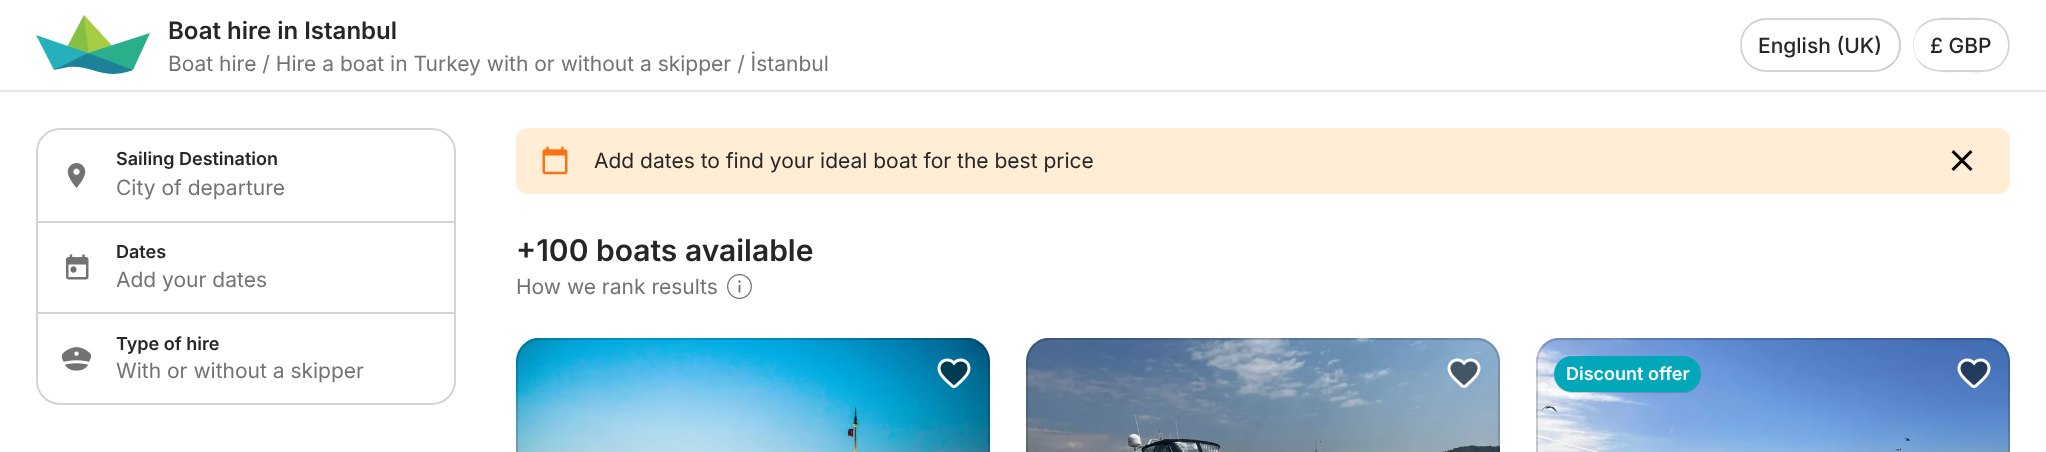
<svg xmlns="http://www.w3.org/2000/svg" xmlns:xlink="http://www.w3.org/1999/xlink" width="2046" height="452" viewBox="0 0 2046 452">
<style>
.cls-1{font:600 24px Inter;fill:#262626}
.cls-2{font:21px Inter;fill:#737373}
.cls-3{font:500 21px Inter;fill:#262626}
.cls-4{font:600 18px Inter;fill:#262626}
.cls-5{font:21px Inter;fill:#262626}
.cls-6{font:600 30px Inter;fill:#262626}
.cls-7{font:600 18px Inter;fill:#ffffff}
</style>
<defs>
<clipPath id="clip1"><rect x="516" y="128" width="1494" height="66" rx="12"/></clipPath>
</defs>
<rect width="100%" height="100%" fill="#ffffff"/>
<rect fill="#e5e5e5" x="0" y="90" width="2046" height="2"/>
<path fill="#a7cb42" fill-rule="evenodd" d="M84 15L82.5 39L88.5 53.5L105.5 52.5L112 45.5Z"/>
<path fill="#85bf43" fill-rule="evenodd" d="M84 15L67.5 46L75 54L88.5 53.5Z"/>
<path fill="#1d8197" fill-rule="evenodd" d="M88 53L67 59L54 70C65 68 73 64 92 70C113 77 125 73 133 70L114 58Z"/>
<path fill="#25b0bb" fill-rule="evenodd" d="M36 35L54 70L88 53Z"/>
<path fill="#2aaf8d" fill-rule="evenodd" d="M133 70L150 33L88 53Z"/>
<path fill="#d4d4d4" d="M1740 44V45C1740 60 1752 72 1767 72H1874C1889 72 1901 60 1901 45C1901 39 1899 33 1896 29C1898 33 1900 39 1900 44C1900 58 1888 70 1874 70H1767C1752 70 1740 58 1740 44Z"/>
<path fill="#d4d4d4" d="M1767 20H1874C1888 20 1900 32 1900 46C1900 51 1898 57 1896 61C1899 57 1901 51 1901 45C1901 30 1889 18 1874 18H1767C1752 18 1740 30 1740 45V46C1740 32 1752 20 1767 20Z"/>
<path fill="#d4d4d4" d="M1872 72C1911 72 1911 18 1872 18C1908 18 1908 72 1872 72Z"/>
<path fill="#d4d4d4" d="M1767 18C1732 18 1731 72 1768 72C1754 72 1742 60 1742 45C1742 30 1754 18 1768 18Z"/>
<path fill="#d4d4d4" d="M1915 56C1924 75 1944 72 1962 72C1977 72 1995 75 2005 60C2008 56 2010 50 2010 44C2010 58 1998 70 1983 70H1940C1930 70 1920 64 1915 56Z"/>
<path fill="#d4d4d4" d="M1940 20H1983C1998 20 2010 32 2010 46C2010 40 2008 34 2005 30C1995 15 1977 18 1962 18C1944 18 1924 15 1915 34C1920 26 1930 20 1940 20Z"/>
<path fill="#d4d4d4" d="M1982 72C2019 72 2019 18 1982 18C1996 18 2008 30 2008 45C2008 60 1996 72 1982 72Z"/>
<path fill="#d4d4d4" d="M1940 18C1905 18 1904 72 1941 72C1905 72 1905 18 1941 18Z"/>
<rect fill="none" stroke="#d4d4d4" stroke-width="2" x="37" y="129" width="418" height="275" rx="23"/>
<rect fill="#d4d4d4" x="38" y="221" width="417" height="2"/>
<image xlink:href="image0.png" x="67" y="163" width="19" height="25"/>
<rect fill="#d4d4d4" x="38" y="312" width="417" height="2"/>
<image xlink:href="image1.png" x="66" y="254" width="23" height="26"/>
<image xlink:href="image2.png" x="62" y="347" width="30" height="24"/>
<rect fill="#ffedd5" x="516" y="128" width="1494" height="66" rx="12"/>
<g clip-path="url(#clip1)">
<rect fill="#ffedd5" x="516" y="128" width="6" height="66"/>
</g>
<image xlink:href="image3.png" x="542" y="146" width="26" height="29"/>
<image xlink:href="image4.png" x="1951" y="150" width="22" height="21"/>
<image xlink:href="image5.png" x="727" y="274" width="25" height="25"/>
<image xlink:href="image6.png" x="516" y="338" width="474" height="114"/>
<image xlink:href="image7.png" x="937" y="358" width="34" height="30"/>
<rect fill="none" stroke="#000000" stroke-opacity="0.16" stroke-width="2" x="517" y="339" width="472" height="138" rx="23"/>
<image xlink:href="image8.png" x="1026" y="338" width="474" height="114"/>
<image xlink:href="image9.png" x="1447" y="358" width="34" height="30"/>
<rect fill="none" stroke="#000000" stroke-opacity="0.16" stroke-width="2" x="1027" y="339" width="472" height="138" rx="23"/>
<image xlink:href="image10.png" x="1536" y="338" width="474" height="114"/>
<path fill="#000000" fill-opacity="0.16" d="M1554 374V375C1554 385 1562 393 1572 393H1683C1693 393 1701 385 1701 375V374C1701 384 1693 392 1683 392H1572C1562 392 1554 384 1554 374Z"/>
<rect fill="#02a8b9" x="1554" y="356" width="147" height="36" rx="18"/>
<image xlink:href="image11.png" x="1957" y="358" width="34" height="30"/>
<rect fill="none" stroke="#000000" stroke-opacity="0.16" stroke-width="2" x="1537" y="339" width="472" height="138" rx="23"/>
<text class="cls-1" x="168" y="39">Boat hire in Istanbul</text>
<text class="cls-2" x="168" y="71">Boat hire / Hire a boat in Turkey with or without a skipper / İstanbul</text>
<text class="cls-3" x="1758" y="53">English (UK)</text>
<text class="cls-3" x="1930" y="53">£ GBP</text>
<text class="cls-4" x="116" y="165">Sailing Destination</text>
<text class="cls-2" x="116" y="195">City of departure</text>
<text class="cls-4" x="116" y="258">Dates</text>
<text class="cls-2" x="116" y="287">Add your dates</text>
<text class="cls-4" x="116" y="350">Type of hire</text>
<text class="cls-2" x="116" y="378">With or without a skipper</text>
<text class="cls-5" x="594" y="168">Add dates to find your ideal boat for the best price</text>
<text class="cls-6" x="516" y="261">+100 boats available</text>
<text class="cls-2" x="516" y="294">How we rank results</text>
<text class="cls-7" x="1566" y="380">Discount offer</text>
</svg>
